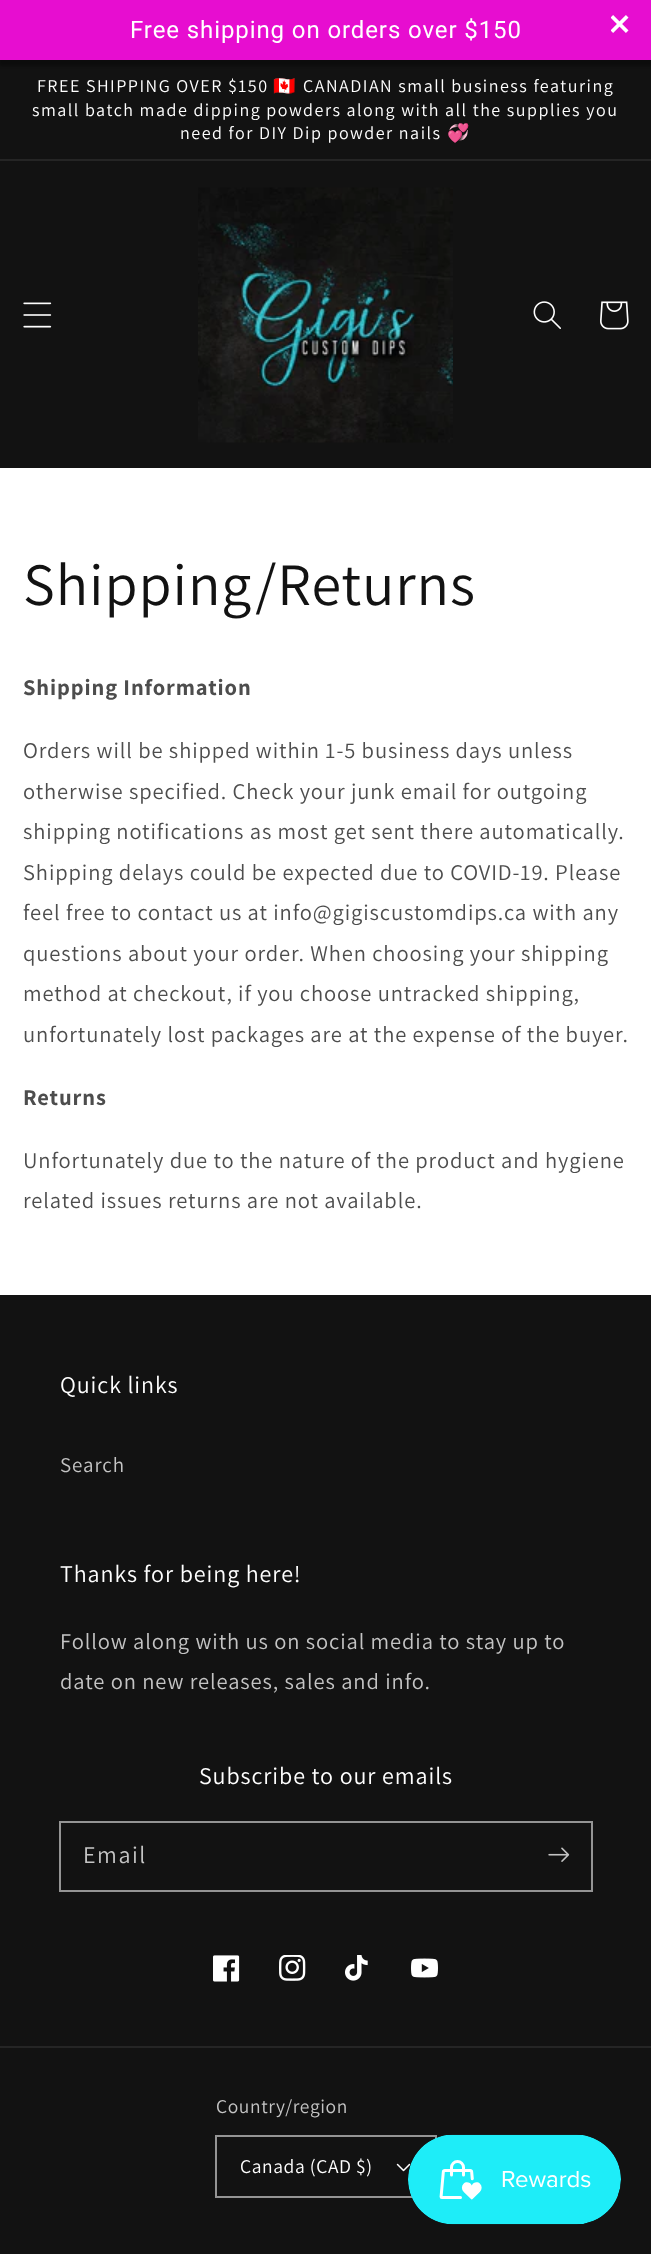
<svg xmlns="http://www.w3.org/2000/svg" xmlns:xlink="http://www.w3.org/1999/xlink" width="651" height="2254" viewBox="0 0 651 2254">
<style>
.cls-1{font:24px Roboto;letter-spacing:0.9px;fill:#ffffff}
.cls-2{font:18px Assistant;letter-spacing:1.5px;fill:#ffffff}
.cls-3{font:18px Noto Color Emoji;letter-spacing:1.5px;fill:#ffffff}
.cls-4{font:60px Assistant;letter-spacing:0.9px;fill:#121212}
.cls-5{font:bold 22.5px Assistant;letter-spacing:0.9px;fill:#4d4d4d}
.cls-6{font:22.5px Assistant;letter-spacing:0.9px;fill:#4d4d4d}
.cls-7{font:24px Assistant;letter-spacing:0.9px;fill:#ffffff}
.cls-8{font:21px Assistant;letter-spacing:0.9px;fill:#c4c4c4}
.cls-9{font:22.5px Assistant;letter-spacing:0.9px;fill:#c4c4c4}
.cls-10{font:24px Assistant;letter-spacing:1.5px;fill:#c4c4c4}
.cls-11{font:19.5px Assistant;letter-spacing:0.6px;fill:#c4c4c4}
.cls-12{font:19.5px Assistant;letter-spacing:0.6px;fill:#ffffff}
</style>
<rect width="100%" height="100%" fill="#ffffff"/>
<rect fill="#121212" x="0" y="60" width="651" height="99"/>
<rect fill="#000000" fill-opacity="0.3" filter="blur(1.5px)" x="-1" y="3" width="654" height="63"/>
<rect fill="#e70dd0" x="0" y="0" width="651" height="60"/>
<image xlink:href="image0.png" x="611" y="15" width="18" height="18"/>
<rect fill="#252525" x="0" y="159" width="651" height="2"/>
<rect fill="#121212" x="0" y="161" width="651" height="307"/>
<image xlink:href="image1.png" x="23" y="302" width="29" height="26"/>
<image xlink:href="image2.png" x="198" y="187" width="255" height="256"/>
<image xlink:href="image3.png" x="533" y="301" width="28" height="28"/>
<image xlink:href="image4.png" x="600" y="301" width="29" height="29"/>
<rect fill="#121212" x="0" y="1295" width="651" height="959"/>
<rect fill="none" stroke="#949494" stroke-width="2" x="60" y="1822" width="532" height="69"/>
<image xlink:href="image5.png" x="548" y="1847" width="22" height="15"/>
<image xlink:href="image6.png" x="213" y="1955" width="27" height="27"/>
<image xlink:href="image7.png" x="279" y="1955" width="27" height="26"/>
<image xlink:href="image8.png" x="345" y="1955" width="23" height="26"/>
<image xlink:href="image9.png" x="411" y="1958" width="27" height="20"/>
<rect fill="#252525" x="0" y="2046" width="651" height="2"/>
<rect fill="none" stroke="#949494" stroke-width="2" x="216" y="2136" width="220" height="61"/>
<image xlink:href="image10.png" x="396" y="2163" width="15" height="9"/>
<image xlink:href="image11.png" x="408" y="2134" width="213" height="91"/>
<text class="cls-1" x="130" y="38">Free shipping on orders over $150</text>
<text class="cls-2" x="37" y="92">FREE SHIPPING OVER $150</text>
<text class="cls-3" x="273" y="92">🇨🇦</text>
<text class="cls-2" x="303" y="92">CANADIAN small business featuring</text>
<text class="cls-2" x="32" y="116">small batch made dipping powders along with all the supplies you</text>
<text class="cls-2" x="180" y="139">need for DIY Dip powder nails</text>
<text class="cls-3" x="447" y="139">💞</text>
<text class="cls-4" x="23" y="605">Shipping/Returns</text>
<text class="cls-5" x="23" y="695">Shipping Information</text>
<text class="cls-6"><tspan x="23" y="758">Orders will be shipped within 1-5 business days unless</tspan><tspan x="23" y="799">otherwise specified. Check your junk email for outgoing</tspan><tspan x="23" y="839">shipping notifications as most get sent there automatically.</tspan><tspan x="23" y="880">Shipping delays could be expected due to COVID-19. Please</tspan><tspan x="23" y="920">feel free to contact us at info@gigiscustomdips.ca with any</tspan><tspan x="23" y="961">questions about your order. When choosing your shipping</tspan><tspan x="23" y="1001">method at checkout, if you choose untracked shipping,</tspan><tspan x="23" y="1042">unfortunately lost packages are at the expense of the buyer.</tspan></text>
<text class="cls-5" x="23" y="1105">Returns</text>
<text class="cls-6"><tspan x="23" y="1168">Unfortunately due to the nature of the product and hygiene</tspan><tspan x="23" y="1208">related issues returns are not available.</tspan></text>
<text class="cls-7" x="60" y="1393">Quick links</text>
<text class="cls-8" x="60" y="1472">Search</text>
<text class="cls-7" x="60" y="1582">Thanks for being here!</text>
<text class="cls-9"><tspan x="60" y="1649">Follow along with us on social media to stay up to</tspan><tspan x="60" y="1689">date on new releases, sales and info.</tspan></text>
<text class="cls-7" x="199" y="1784">Subscribe to our emails</text>
<text class="cls-10" x="83" y="1863">Email</text>
<text class="cls-11" x="216" y="2113">Country/region</text>
<text class="cls-12" x="240" y="2173">Canada (CAD $)</text>
</svg>
